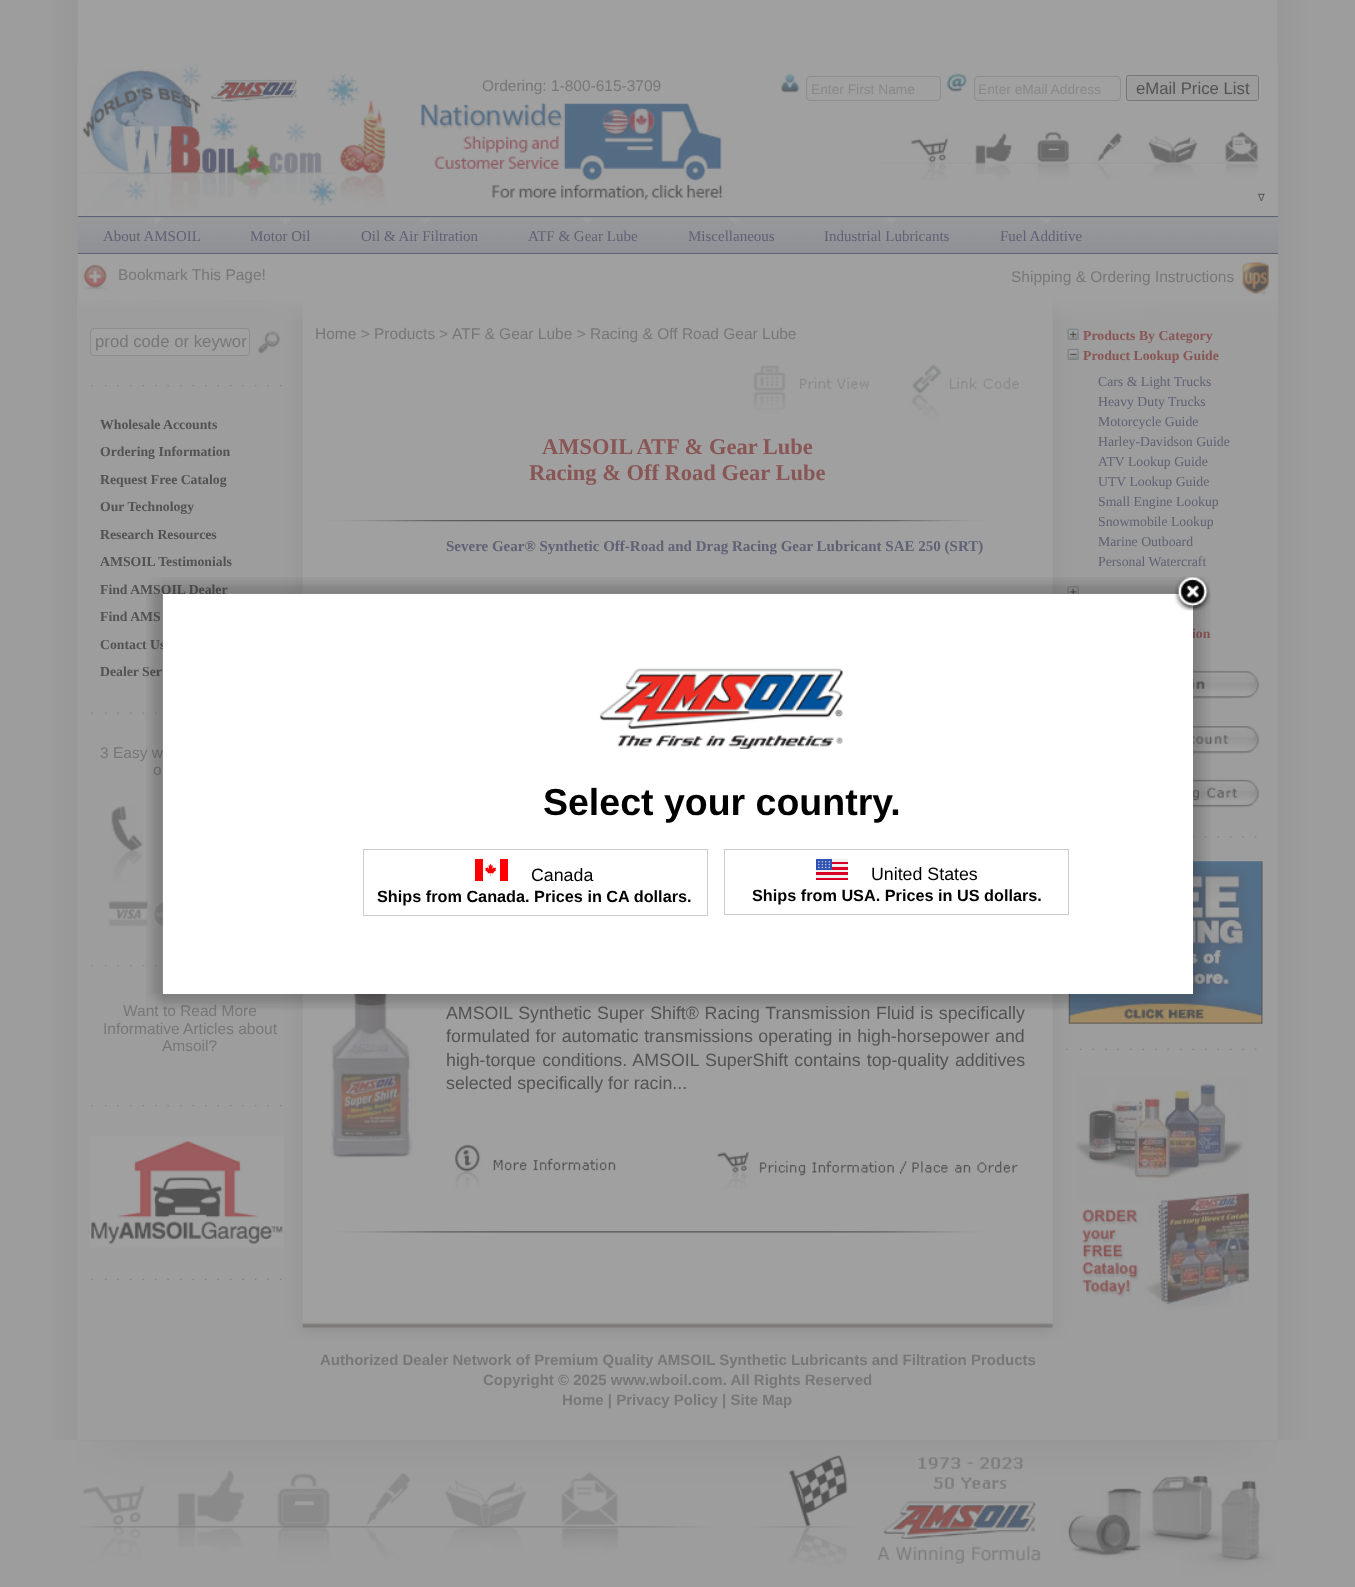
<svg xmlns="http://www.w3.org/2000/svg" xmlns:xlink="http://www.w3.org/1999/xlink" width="1355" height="1587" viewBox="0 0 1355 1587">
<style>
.cls-1{font:15.5px Liberation Sans;fill:#777777}
.cls-2{font:13.75px Liberation Sans;fill:#888888}
.cls-3{font:16.75px Liberation Sans;fill:#535353}
.cls-4{font:10px DejaVu Sans;fill:#535353}
.cls-5{font:15px Liberation Serif;fill:#5f6274}
.cls-6{font:16.75px Liberation Sans;fill:#777777}
.cls-7{font:bold 13.75px Liberation Serif;fill:#535353}
.cls-8{font:bold 22.5px Liberation Serif;fill:#895555}
.cls-9{font:bold 15px Liberation Serif;fill:#5f6274}
.cls-10{font:17.8px Liberation Sans;fill:#535353}
.cls-11{font:bold 13.75px Liberation Serif;fill:#895555}
.cls-12{font:13.75px Liberation Serif;fill:#5f6274}
.cls-13{font:bold 15px Liberation Sans;fill:#777777}
.cls-14{font:bold 16.25px Liberation Sans;fill:#000000}
.cls-15{font:17.8px Liberation Sans;fill:#000000}
.cls-16{font:bold 37.5px Liberation Sans;fill:#000000}
</style>
<rect width="100%" height="100%" fill="#9d9d9d"/>
<image xlink:href="image0.png" x="47" y="0" width="1261" height="1440"/>
<rect fill="#a0a0a0" x="1277" y="63" width="1" height="153"/>
<image xlink:href="image1.png" x="77" y="63" width="309" height="155"/>
<image xlink:href="image2.png" x="421" y="103" width="302" height="98"/>
<image xlink:href="image3.png" x="780" y="73" width="20" height="20"/>
<rect fill="none" stroke="#8d8d8d" x="806.5" y="76.5" width="134" height="24" rx="3.5"/>
<image xlink:href="image4.png" x="946" y="72" width="21" height="20"/>
<rect fill="none" stroke="#8d8d8d" x="974.5" y="76.5" width="146" height="24" rx="3.5"/>
<rect fill="#9b9b9b" stroke="#777777" x="1126.5" y="75.5" width="132" height="25" rx="2"/>
<image xlink:href="image5.png" x="879" y="131" width="399" height="85"/>
<rect fill="#a0a0a0" x="1277" y="217" width="1" height="1"/>
<rect fill="#939498" x="1277" y="218" width="1" height="35"/>
<image xlink:href="image6.png" x="77" y="216" width="1201" height="38"/>
<rect fill="#5f6274" x="78" y="216" width="1200" height="1"/>
<rect fill="#5f6274" x="78" y="253" width="1200" height="1"/>
<rect fill="#9d9d9e" x="150" y="218" width="13" height="1"/>
<rect fill="#9d9d9e" x="153" y="219" width="8" height="1"/>
<rect fill="#9d9d9e" x="151" y="219" width="1" height="1"/>
<rect fill="#9d9d9e" x="153" y="220" width="7" height="1"/>
<rect fill="#9d9d9e" x="154" y="221" width="5" height="1"/>
<rect fill="#9d9d9e" x="155" y="223" width="2" height="1"/>
<rect fill="#9d9d9e" x="279" y="218" width="12" height="1"/>
<rect fill="#9d9d9e" x="280" y="219" width="10" height="1"/>
<rect fill="#9d9d9e" x="283" y="220" width="6" height="1"/>
<rect fill="#9d9d9e" x="281" y="220" width="1" height="1"/>
<rect fill="#9d9d9e" x="283" y="221" width="4" height="1"/>
<rect fill="#9d9d9e" x="284" y="223" width="2" height="1"/>
<rect fill="#9d9d9e" x="419" y="218" width="12" height="1"/>
<rect fill="#9d9d9e" x="420" y="219" width="10" height="1"/>
<rect fill="#9d9d9e" x="423" y="220" width="6" height="1"/>
<rect fill="#9d9d9e" x="421" y="220" width="1" height="1"/>
<rect fill="#9d9d9e" x="423" y="221" width="4" height="1"/>
<rect fill="#9d9d9e" x="424" y="223" width="2" height="1"/>
<rect fill="#9d9d9e" x="581" y="218" width="13" height="1"/>
<rect fill="#9d9d9e" x="583" y="219" width="9" height="1"/>
<rect fill="#9d9d9e" x="584" y="220" width="7" height="1"/>
<rect fill="#9d9d9e" x="585" y="221" width="5" height="1"/>
<rect fill="#9d9d9e" x="588" y="223" width="1" height="1"/>
<rect fill="#9d9d9e" x="586" y="223" width="1" height="1"/>
<rect fill="#9d9d9e" x="729" y="218" width="12" height="1"/>
<rect fill="#9d9d9e" x="730" y="219" width="10" height="1"/>
<rect fill="#9d9d9e" x="733" y="220" width="6" height="1"/>
<rect fill="#9d9d9e" x="731" y="220" width="1" height="1"/>
<rect fill="#9d9d9e" x="733" y="221" width="4" height="1"/>
<rect fill="#9d9d9e" x="734" y="223" width="2" height="1"/>
<rect fill="#9d9d9e" x="885" y="218" width="13" height="1"/>
<rect fill="#9d9d9e" x="888" y="219" width="8" height="1"/>
<rect fill="#9d9d9e" x="886" y="219" width="1" height="1"/>
<rect fill="#9d9d9e" x="888" y="220" width="7" height="1"/>
<rect fill="#9d9d9e" x="889" y="221" width="5" height="1"/>
<rect fill="#9d9d9e" x="890" y="223" width="2" height="1"/>
<rect fill="#9d9d9e" x="1040" y="218" width="13" height="1"/>
<rect fill="#9d9d9e" x="1043" y="219" width="8" height="1"/>
<rect fill="#9d9d9e" x="1041" y="219" width="1" height="1"/>
<rect fill="#9d9d9e" x="1043" y="220" width="7" height="1"/>
<rect fill="#9d9d9e" x="1044" y="221" width="5" height="1"/>
<rect fill="#9d9d9e" x="1045" y="223" width="2" height="1"/>
<rect fill="#a0a0a0" x="1277" y="254" width="1" height="46"/>
<image xlink:href="image7.png" x="81" y="262" width="26" height="28"/>
<image xlink:href="image8.png" x="1242" y="262" width="27" height="32"/>
<image xlink:href="image9.png" x="77" y="300" width="1201" height="19"/>
<image xlink:href="image10.png" x="78" y="319" width="1199" height="1004"/>
<rect fill="#a0a0a0" stroke="#8d8d8d" x="90.5" y="328.5" width="159" height="27" rx="3.5"/>
<image xlink:href="image11.png" x="257" y="331" width="24" height="23"/>
<image xlink:href="image12.png" x="91" y="384" width="191" height="3"/>
<image xlink:href="image13.png" x="91" y="712" width="72" height="2"/>
<image xlink:href="image14.png" x="111" y="806" width="32" height="78"/>
<image xlink:href="image15.png" x="108" y="901" width="55" height="27"/>
<image xlink:href="image16.png" x="91" y="964" width="72" height="3"/>
<image xlink:href="image12.png" x="91" y="1104" width="191" height="3"/>
<image xlink:href="image17.png" x="90" y="1136" width="194" height="112"/>
<image xlink:href="image18.png" x="91" y="1278" width="191" height="2"/>
<image xlink:href="image19.png" x="753" y="365" width="116" height="49"/>
<image xlink:href="image20.png" x="911" y="364" width="108" height="57"/>
<image xlink:href="image21.png" x="328" y="520" width="658" height="2"/>
<image xlink:href="image22.png" x="330" y="994" width="86" height="164"/>
<image xlink:href="image23.png" x="454" y="1144" width="162" height="46"/>
<image xlink:href="image24.png" x="717" y="1151" width="301" height="40"/>
<image xlink:href="image25.png" x="332" y="1231" width="652" height="2"/>
<image xlink:href="image26.png" x="1067" y="328" width="12" height="12"/>
<image xlink:href="image27.png" x="1067" y="348" width="12" height="12"/>
<image xlink:href="image28.png" x="1067" y="586" width="12" height="8"/>
<image xlink:href="image29.png" x="1193" y="669" width="66" height="33"/>
<image xlink:href="image30.png" x="1193" y="726" width="66" height="28"/>
<image xlink:href="image31.png" x="1193" y="778" width="66" height="33"/>
<image xlink:href="image32.png" x="1193" y="836" width="64" height="2"/>
<image xlink:href="image33.png" x="1068" y="861" width="195" height="163"/>
<image xlink:href="image34.png" x="1066" y="1048" width="191" height="2"/>
<image xlink:href="image35.png" x="1076" y="1074" width="173" height="239"/>
<image xlink:href="image36.png" x="78" y="1322" width="1199" height="19"/>
<rect fill="#9d9d9d" x="78" y="1341" width="1199" height="99"/>
<rect fill="#ffffff" x="176" y="607" width="1004" height="374"/>
<image xlink:href="image49.png" x="77" y="1440" width="1201" height="137"/>
<text class="cls-1" x="482" y="91">Ordering: 1-800-615-3709</text>
<text class="cls-2" x="811" y="94">Enter First Name</text>
<text class="cls-2" x="978" y="94">Enter eMail Address</text>
<text class="cls-3" x="1136" y="94">eMail Price List</text>
<text class="cls-4" x="1258" y="201">∇</text>
<text class="cls-5" x="103" y="241">About AMSOIL</text>
<text class="cls-5" x="250" y="241">Motor Oil</text>
<text class="cls-5" x="361" y="241">Oil &amp; Air Filtration</text>
<text class="cls-5" x="528" y="241">ATF &amp; Gear Lube</text>
<text class="cls-5" x="688" y="241">Miscellaneous</text>
<text class="cls-5" x="824" y="241">Industrial Lubricants</text>
<text class="cls-5" x="1000" y="241">Fuel Additive</text>
<text class="cls-1" x="118" y="280">Bookmark This Page!</text>
<text class="cls-1" x="1011" y="282">Shipping &amp; Ordering Instructions</text>
<text class="cls-6" x="95" y="347">prod code or keywor</text>
<text class="cls-7"><tspan x="100" y="429">Wholesale Accounts</tspan><tspan x="100" y="456">Ordering Information</tspan></text>
<text class="cls-7"><tspan x="100" y="484">Request Free Catalog</tspan><tspan x="100" y="511">Our Technology</tspan></text>
<text class="cls-7"><tspan x="100" y="539">Research Resources</tspan><tspan x="100" y="566">AMSOIL Testimonials</tspan></text>
<text class="cls-7"><tspan x="100" y="594">Find AMSOIL Dealer</tspan><tspan x="100" y="621">Find AMS</tspan></text>
<text class="cls-7"><tspan x="100" y="649">Contact Us</tspan><tspan x="100" y="676">Dealer Ser</tspan></text>
<text class="cls-1" x="100" y="758">3 Easy w</text>
<text class="cls-1" x="153" y="775">o</text>
<text class="cls-1" x="123" y="1016">Want to Read More</text>
<text class="cls-1" x="103" y="1034">Informative Articles about</text>
<text class="cls-1" x="162" y="1051">Amsoil?</text>
<text class="cls-1" x="315" y="339">Home &gt; Products</text>
<text class="cls-1" x="439" y="339">&gt;</text>
<text class="cls-1" x="452" y="339">ATF &amp; Gear Lube &gt; Racing &amp; Off Road Gear Lube</text>
<text class="cls-8" x="542" y="454">AMSOIL ATF &amp; Gear Lube</text>
<text class="cls-8" x="529" y="480">Racing &amp; Off Road Gear Lube</text>
<text class="cls-9" x="446" y="551">Severe Gear® Synthetic Off-Road and Drag Racing Gear Lubricant SAE 250 (SRT)</text>
<text class="cls-10"><tspan x="446" y="1019" word-spacing="0.75">AMSOIL Synthetic Super Shift® Racing Transmission Fluid is specifically</tspan><tspan x="446" y="1042" word-spacing="0.5">formulated for automatic transmissions operating in high-horsepower and</tspan><tspan x="446" y="1066" word-spacing="1.25">high-torque conditions. AMSOIL SuperShift contains top-quality additives</tspan><tspan x="446" y="1089">selected specifically for racin...</tspan></text>
<text class="cls-11"><tspan x="1083" y="340">Products By Category</tspan><tspan x="1083" y="360">Product Lookup Guide</tspan></text>
<text class="cls-12"><tspan x="1098" y="386">Cars &amp; Light Trucks</tspan><tspan x="1098" y="406">Heavy Duty Trucks</tspan><tspan x="1098" y="426">Motorcycle Guide</tspan><tspan x="1098" y="446">Harley-Davidson Guide</tspan><tspan x="1098" y="466">ATV Lookup Guide</tspan><tspan x="1098" y="486">UTV Lookup Guide</tspan><tspan x="1098" y="506">Small Engine Lookup</tspan><tspan x="1098" y="526">Snowmobile Lookup</tspan><tspan x="1098" y="546">Marine Outboard</tspan><tspan x="1098" y="566">Personal Watercraft</tspan></text>
<text class="cls-11" x="1192" y="638">ion</text>
<text class="cls-13" x="320" y="1365">Authorized Dealer Network of Premium Quality AMSOIL Synthetic Lubricants and Filtration Products</text>
<text class="cls-13" x="483" y="1385">Copyright © 2025 www.wboil.com. All Rights Reserved</text>
<text class="cls-13" x="562" y="1405">Home | Privacy Policy | Site Map</text>
<image xlink:href="image39.png" x="162" y="577" width="1031" height="17"/>
<image xlink:href="image40.png" x="1192" y="577" width="17" height="17"/>
<image xlink:href="image45.png" x="1192" y="593" width="19" height="401"/>
<image xlink:href="image48.png" x="1192" y="993" width="16" height="17"/>
<image xlink:href="image47.png" x="162" y="993" width="1031" height="17"/>
<rect fill="none" stroke="#ffffff" stroke-width="13" x="169.5" y="600.5" width="1017" height="387"/>
<image xlink:href="image38.png" x="1174" y="576" width="37" height="35"/>
<rect fill="none" stroke="#d0cbcb" x="724.5" y="849.5" width="344" height="65"/>
<text class="cls-14" x="752" y="901">Ships from USA. Prices in US dollars.</text>
<text class="cls-15" x="871" y="880">United States</text>
<image xlink:href="image44.png" x="816" y="859" width="32" height="21"/>
<rect fill="none" stroke="#d0cbcb" x="363.5" y="849.5" width="344" height="66"/>
<text class="cls-14" x="377" y="902">Ships from Canada. Prices in CA dollars.</text>
<text class="cls-15" x="531" y="881">Canada</text>
<image xlink:href="image43.png" x="475" y="859" width="33" height="22"/>
<text class="cls-16" x="543" y="815">Select your country.</text>
<image xlink:href="image42.png" x="599" y="668" width="244" height="81"/>
<image xlink:href="image46.png" x="146" y="993" width="17" height="17"/>
<image xlink:href="image41.png" x="146" y="593" width="17" height="401"/>
<image xlink:href="image37.png" x="147" y="577" width="16" height="17"/>
</svg>
